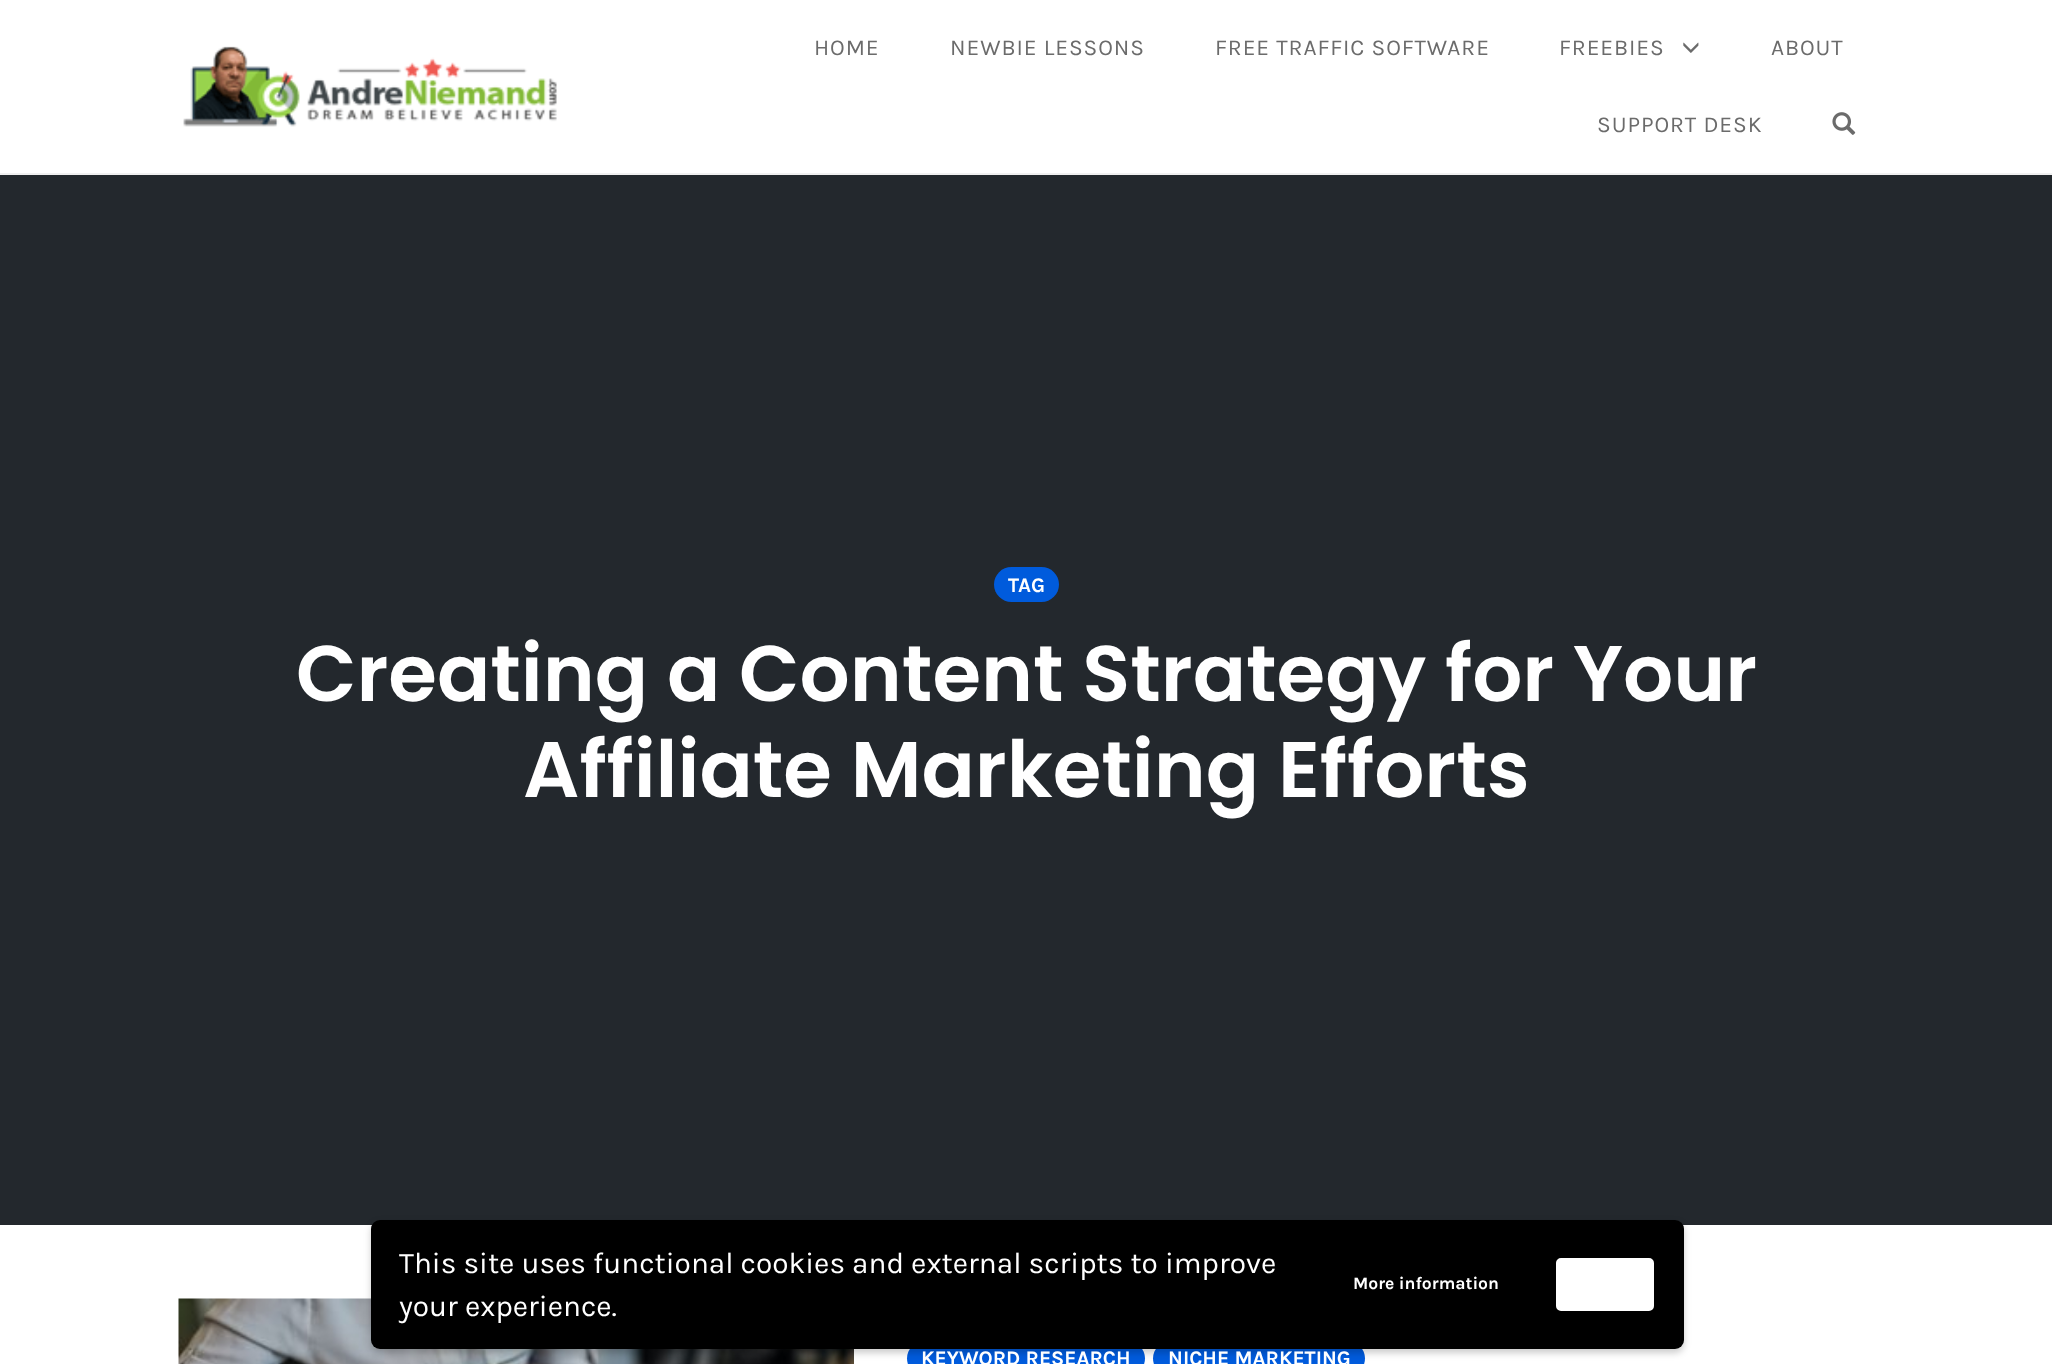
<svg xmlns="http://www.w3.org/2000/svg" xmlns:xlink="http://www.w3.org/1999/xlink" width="2052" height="1364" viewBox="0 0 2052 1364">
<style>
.cls-1{font:22.75px Karla;letter-spacing:0.9px;fill:#6b6b6b}
.cls-2{font:bold 20.75px Karla;fill:#ffffff}
.cls-3{font:600 78.75px Poppins;fill:#ffffff}
.cls-4{font:29.75px Karla;fill:#ffffff}
.cls-5{font:bold 17.5px Karla;fill:#ffffff}
</style>
<rect width="100%" height="100%" fill="#ffffff"/>
<rect fill="#f0f0f0" x="0" y="173" width="2052" height="2"/>
<image xlink:href="image0.png" x="183" y="46" width="374" height="81"/>
<image xlink:href="image1.png" x="1683" y="42" width="16" height="11"/>
<image xlink:href="image2.png" x="1832" y="112" width="24" height="23"/>
<rect fill="#23282d" x="0" y="175" width="2052" height="1050"/>
<rect fill="#005bdc" x="994" y="567" width="65" height="35" rx="17.5"/>
<image xlink:href="image3.png" x="178" y="1298" width="676" height="66"/>
<rect fill="#005bdc" x="907" y="1341" width="238" height="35" rx="17.5"/>
<rect fill="#005bdc" x="1153" y="1341" width="212" height="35" rx="17.5"/>
<rect fill="#000000" fill-opacity="0.2" filter="blur(3.5px)" x="371" y="1223" width="1313" height="130" rx="9"/>
<rect fill="#000000" x="371" y="1220" width="1313" height="129" rx="9"/>
<rect fill="#ffffff" stroke="#ffffff" stroke-width="2" x="1557" y="1259" width="96" height="51" rx="4"/>
<text class="cls-1" x="814" y="55">HOME</text>
<text class="cls-1" x="950" y="55">NEWBIE LESSONS</text>
<text class="cls-1" x="1215" y="55">FREE TRAFFIC SOFTWARE</text>
<text class="cls-1" x="1559" y="55">FREEBIES</text>
<text class="cls-1" x="1771" y="55">ABOUT</text>
<text class="cls-1" x="1597" y="132">SUPPORT DESK</text>
<text class="cls-2" x="1008" y="592">TAG</text>
<text class="cls-3" x="296" y="701">Creating a Content Strategy for Your</text>
<text class="cls-3" x="523" y="797">Affiliate Marketing Efforts</text>
<text class="cls-2" x="921" y="1365">KEYWORD RESEARCH</text>
<text class="cls-2" x="1168" y="1365">NICHE MARKETING</text>
<text class="cls-4"><tspan x="399" y="1273">This site uses functional cookies and external scripts to improve</tspan><tspan x="399" y="1316">your experience.</tspan></text>
<text class="cls-5" x="1353" y="1289">More information</text>
</svg>
